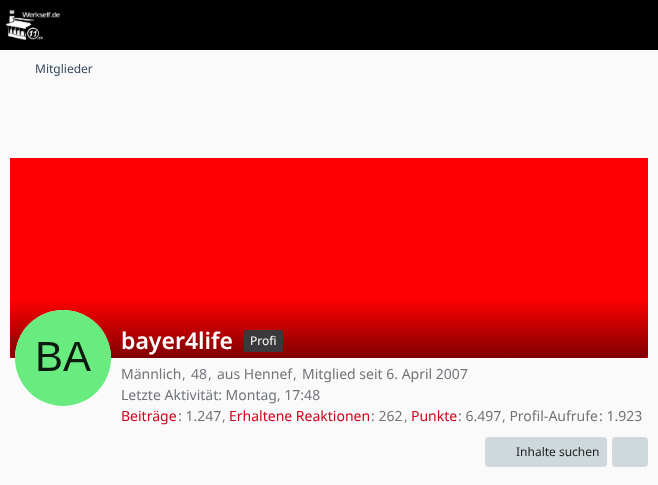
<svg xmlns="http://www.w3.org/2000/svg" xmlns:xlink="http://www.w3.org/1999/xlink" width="658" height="485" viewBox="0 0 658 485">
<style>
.cls-1{font:12px Noto Sans;fill:#34495e}
.cls-2{font:600 23px Noto Sans;fill:#ffffff}
.cls-3{font:12px Noto Sans;fill:#ffffff}
.cls-4{font:14px Noto Sans;fill:#71757a}
.cls-5{font:14px Noto Sans;fill:#d0021b}
.cls-6{font:12px Noto Sans;fill:#212121}
</style>
<defs>
<linearGradient id="g1" gradientUnits="userSpaceOnUse" x1="329" y1="158" x2="329" y2="358"><stop offset="0.7" stop-color="#ff0002"/><stop offset="1" stop-color="#800001"/></linearGradient>
</defs>
<rect width="100%" height="100%" fill="#fafafa"/>
<rect fill="#000000" x="0" y="0" width="658" height="50"/>
<image xlink:href="image0.png" x="6" y="9" width="54" height="31"/>
<rect fill="#ff0002" x="10" y="355" width="638" height="3"/>
<path fill="url(#g1)" d="M10 158H648V355C648 356.5 646.5 358 645 358H13C11.5 358 10 356.5 10 355Z"/>
<circle fill="#ffffff" cx="63" cy="358" r="48"/>
<image xlink:href="image1.png" x="15" y="310" width="96" height="96"/>
<rect fill="#3a3a3d" x="244" y="330" width="39" height="22" rx="2"/>
<rect fill="#cfd8dc" x="485" y="437" width="122" height="30" rx="4"/>
<rect fill="#cfd8dc" x="612" y="437" width="36" height="30" rx="4"/>
<text class="cls-1" x="35" y="73">Mitglieder</text>
<text class="cls-2" x="121" y="349">bayer4life</text>
<text class="cls-3" x="250" y="345">Profi</text>
<text class="cls-4" x="121" y="379">Männlich</text>
<text class="cls-4" x="182" y="379">,</text>
<text class="cls-4" x="191" y="379">48</text>
<text class="cls-4" x="208" y="379">,</text>
<text class="cls-4" x="217" y="379">aus Hennef</text>
<text class="cls-4" x="293" y="379">,</text>
<text class="cls-4" x="302" y="379">Mitglied seit 6. April 2007</text>
<text class="cls-4" x="121" y="400">Letzte Aktivität: Montag, 17:48</text>
<text class="cls-5" x="121" y="421">Beiträge</text>
<text class="cls-4" x="178" y="421">: 1.247</text>
<text class="cls-4" x="222" y="421">,</text>
<text class="cls-5" x="229" y="421">Erhaltene Reaktionen</text>
<text class="cls-4" x="371" y="421">: 262</text>
<text class="cls-4" x="404" y="421">,</text>
<text class="cls-5" x="411" y="421">Punkte</text>
<text class="cls-4" x="458" y="421">: 6.497</text>
<text class="cls-4" x="502" y="421">, Profil-Aufrufe</text>
<text class="cls-4" x="599" y="421">: 1.923</text>
<text class="cls-6" x="516" y="456">Inhalte suchen</text>
</svg>
